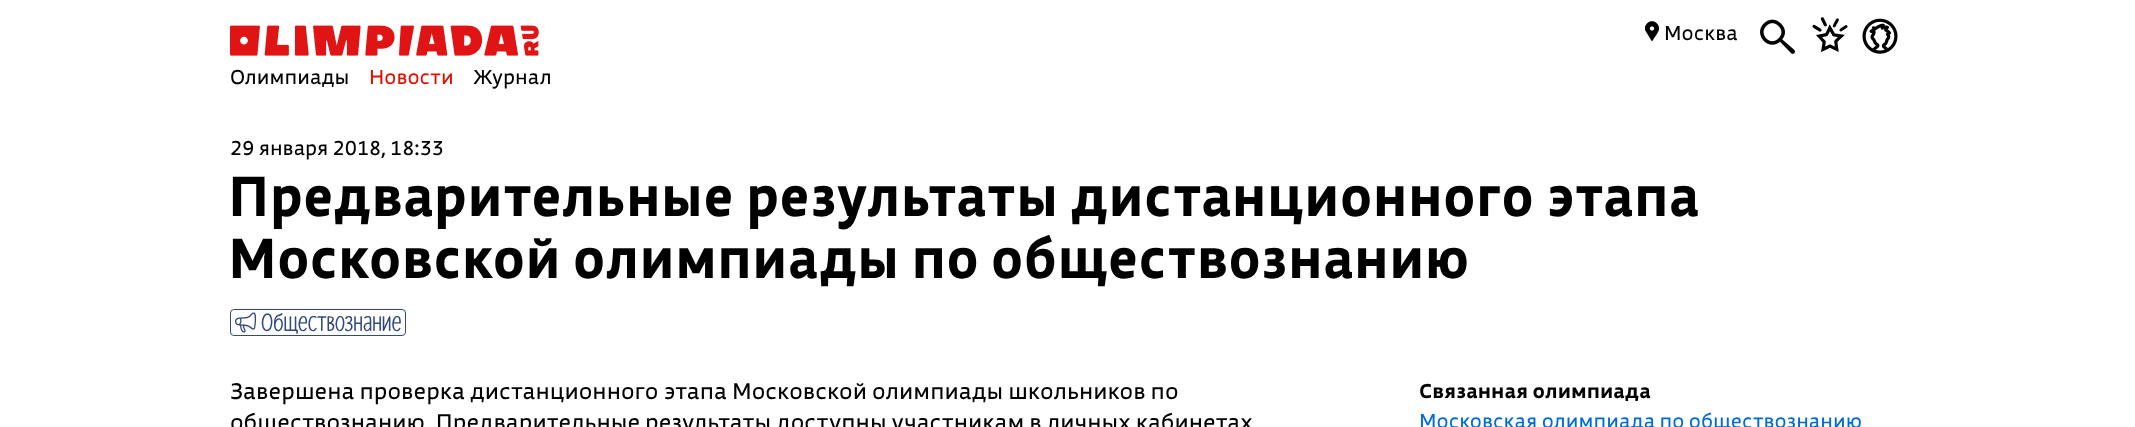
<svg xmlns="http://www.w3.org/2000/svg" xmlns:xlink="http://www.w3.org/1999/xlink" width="2135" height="427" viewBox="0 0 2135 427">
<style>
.cls-1{font:20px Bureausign;fill:#000000}
.cls-2{font:20px Bureausign;fill:#e11000}
.cls-3{font:bold 56.25px 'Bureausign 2';fill:#000000}
.cls-4{font:25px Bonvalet;fill:#334a79}
.cls-5{font:22.5px Bureausign;fill:#000000}
.cls-6{font:bold 20px Bureausign;fill:#000000}
.cls-7{font:20px Bureausign;fill:#006cd9}
</style>
<rect width="100%" height="100%" fill="#ffffff"/>
<image xlink:href="image0.png" x="230" y="25" width="309" height="31"/>
<image xlink:href="image1.png" x="1645" y="21" width="14" height="21"/>
<image xlink:href="image2.png" x="1760" y="19" width="35" height="35"/>
<image xlink:href="image3.png" x="1812" y="17" width="36" height="35"/>
<image xlink:href="image4.png" x="1862" y="18" width="36" height="36"/>
<rect fill="none" stroke="#334a79" x="230.5" y="309.5" width="175" height="26" rx="3.5"/>
<image xlink:href="image5.png" x="235" y="312" width="22" height="21"/>
<text class="cls-1" x="1664" y="40">Москва</text>
<text class="cls-1" x="230" y="84">Олимпиады</text>
<text class="cls-2" x="369" y="84">Новости</text>
<text class="cls-1" x="473" y="84">Журнал</text>
<text class="cls-1" x="230" y="155">29 января 2018, 18:33</text>
<text class="cls-3"><tspan x="228" y="216">Предварительные результаты дистанционного этапа</tspan><tspan x="228" y="278">Московской олимпиады по обществознанию</tspan></text>
<text class="cls-4" x="261" y="331">Обществознание</text>
<text class="cls-5"><tspan x="230" y="399">Завершена проверка дистанционного этапа Московской олимпиады школьников по</tspan><tspan x="230" y="430">обществознанию. Предварительные результаты доступны участникам в личных кабинетах</tspan></text>
<text class="cls-6" x="1419" y="398">Связанная олимпиада</text>
<text class="cls-7" x="1419" y="428">Московская олимпиада по обществознанию</text>
</svg>
